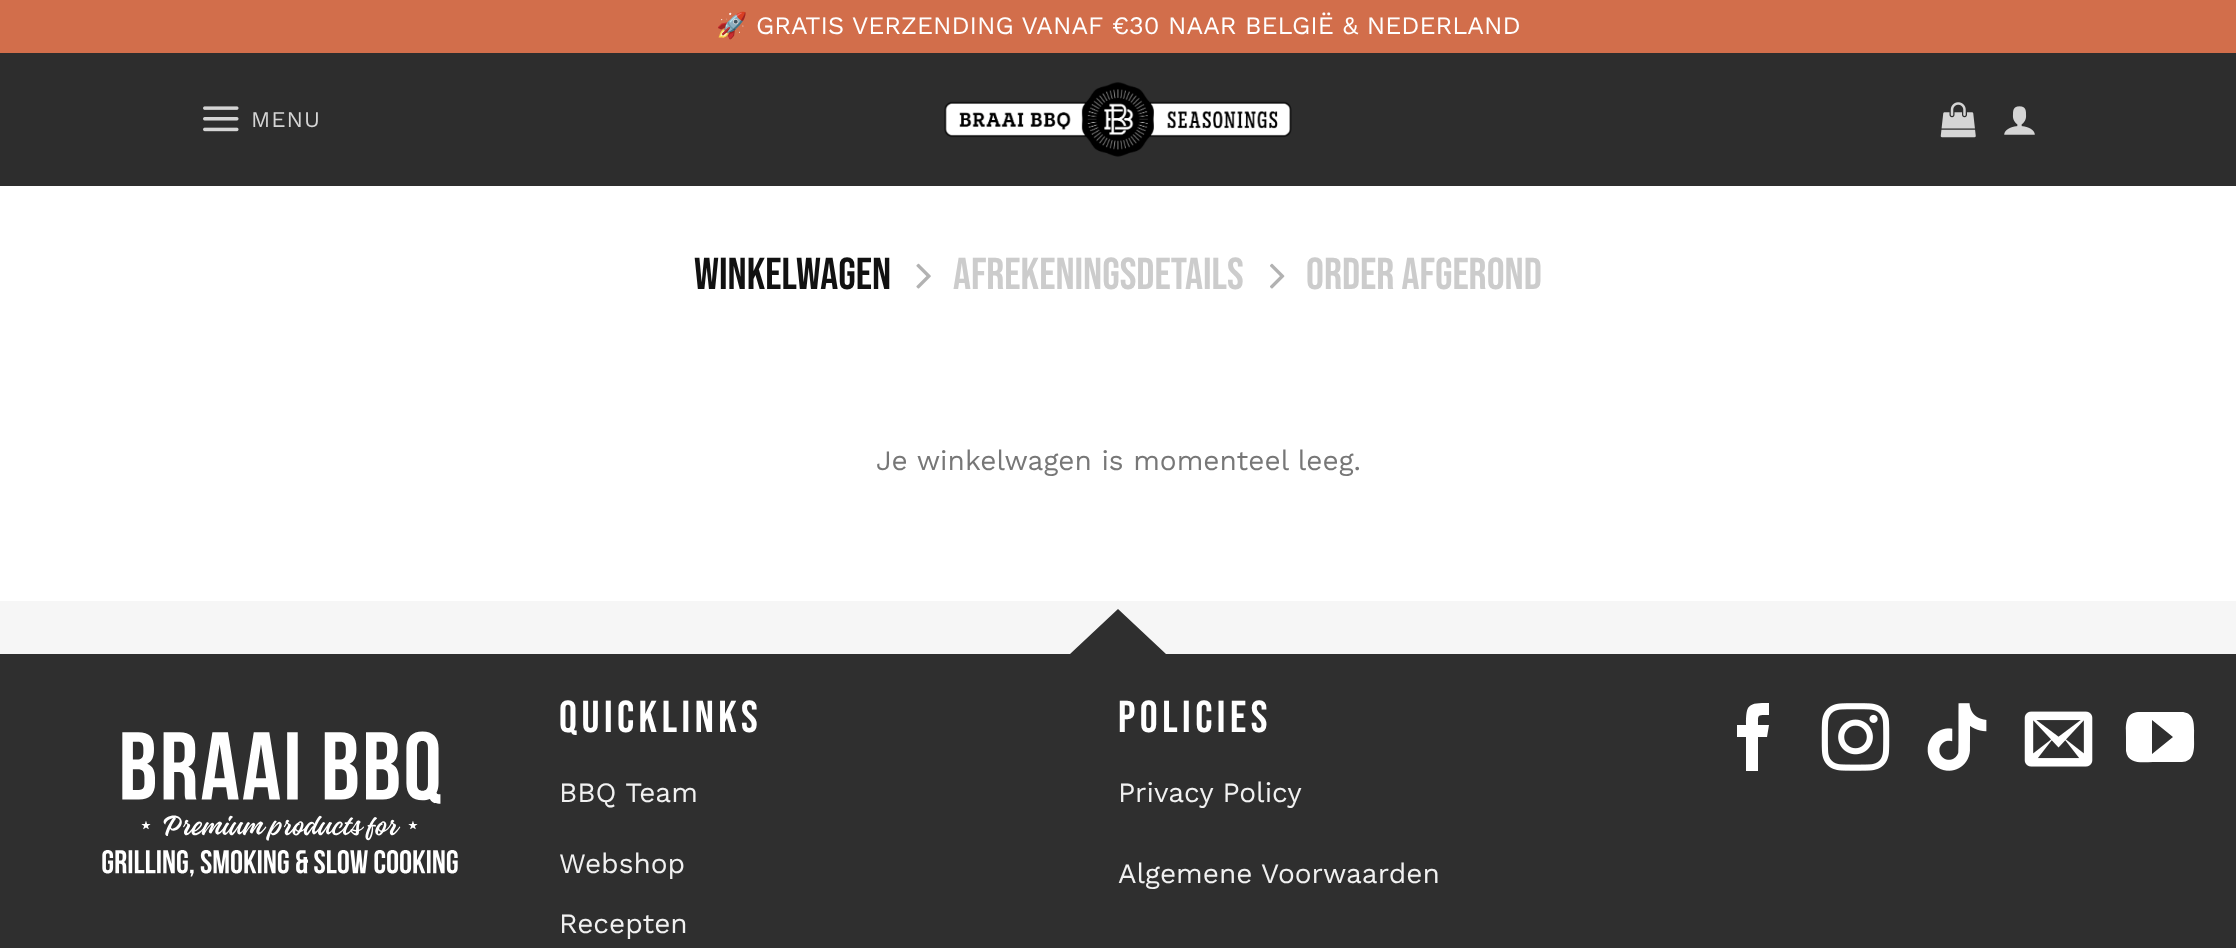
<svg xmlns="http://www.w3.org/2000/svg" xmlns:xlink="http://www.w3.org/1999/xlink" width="2236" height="948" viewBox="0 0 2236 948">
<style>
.cls-1{font:25.2px Noto Color Emoji;fill:#ffffff}
.cls-2{font:25.2px Work Sans;fill:#ffffff}
.cls-3{font:22.5px Work Sans;letter-spacing:1px;fill:#d5d5d5}
.cls-4{font:44.75px Bebas Neue;fill:#111111}
.cls-5{font:44.75px Bebas Neue;fill:#cccccc}
.cls-6{font:28px Work Sans;fill:#777777}
.cls-7{font:44.75px Bebas Neue;letter-spacing:4.5px;fill:#ffffff}
.cls-8{font:28px Work Sans;fill:#f1f1f1}
</style>
<rect width="100%" height="100%" fill="#ffffff"/>
<rect fill="#d26e4b" x="0" y="0" width="2236" height="53"/>
<rect fill="#2d2d2d" x="0" y="53" width="2236" height="133"/>
<image xlink:href="image0.png" x="203" y="106" width="36" height="26"/>
<image xlink:href="image1.png" x="944" y="82" width="348" height="75"/>
<image xlink:href="image2.png" x="1940" y="102" width="36" height="36"/>
<image xlink:href="image3.png" x="2004" y="106" width="31" height="29"/>
<image xlink:href="image4.png" x="916" y="263" width="15" height="26"/>
<image xlink:href="image5.png" x="1270" y="263" width="15" height="26"/>
<rect fill="#2f2f2f" x="0" y="609" width="2236" height="339"/>
<path fill="#f6f6f6" d="M-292 601H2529V654H1166L1118 609L1070 654H-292Z"/>
<image xlink:href="image6.png" x="102" y="731" width="356" height="146"/>
<path fill="#ffffff" d="M1758 771H1746V737H1737V725H1746C1746 704 1748 703 1769 703V715C1757 715 1758 714 1758 725H1769L1767 737H1758Z"/>
<image xlink:href="image7.png" x="1821" y="703" width="69" height="68"/>
<image xlink:href="image8.png" x="1927" y="703" width="60" height="68"/>
<image xlink:href="image9.png" x="2024" y="711" width="69" height="56"/>
<path fill="#ffffff" d="M2181 712H2138C2124 713 2126 727 2126 737V751C2128 765 2143 762 2153 762H2182C2196 761 2194 746 2194 737C2194 727 2196 712 2181 712ZM2152 754V720L2173 737Z"/>
<text class="cls-1" x="716" y="34">🚀</text>
<text class="cls-2" x="756" y="34">GRATIS VERZENDING VANAF €30 NAAR BELGIË &amp; NEDERLAND</text>
<text class="cls-3" x="251" y="127">MENU</text>
<text class="cls-4" x="694" y="289">WINKELWAGEN</text>
<text class="cls-5" x="953" y="289">AFREKENINGSDETAILS</text>
<text class="cls-5" x="1306" y="289">ORDER AFGEROND</text>
<text class="cls-6" x="876" y="470">Je winkelwagen is momenteel leeg.</text>
<text class="cls-7" x="559" y="732">Quicklinks</text>
<text class="cls-8" x="559" y="802">BBQ Team</text>
<text class="cls-8" x="559" y="873">Webshop</text>
<text class="cls-8" x="559" y="933">Recepten</text>
<text class="cls-7" x="1118" y="732">Policies</text>
<text class="cls-8" x="1118" y="802">Privacy Policy</text>
<text class="cls-8" x="1118" y="883">Algemene Voorwaarden</text>
</svg>
